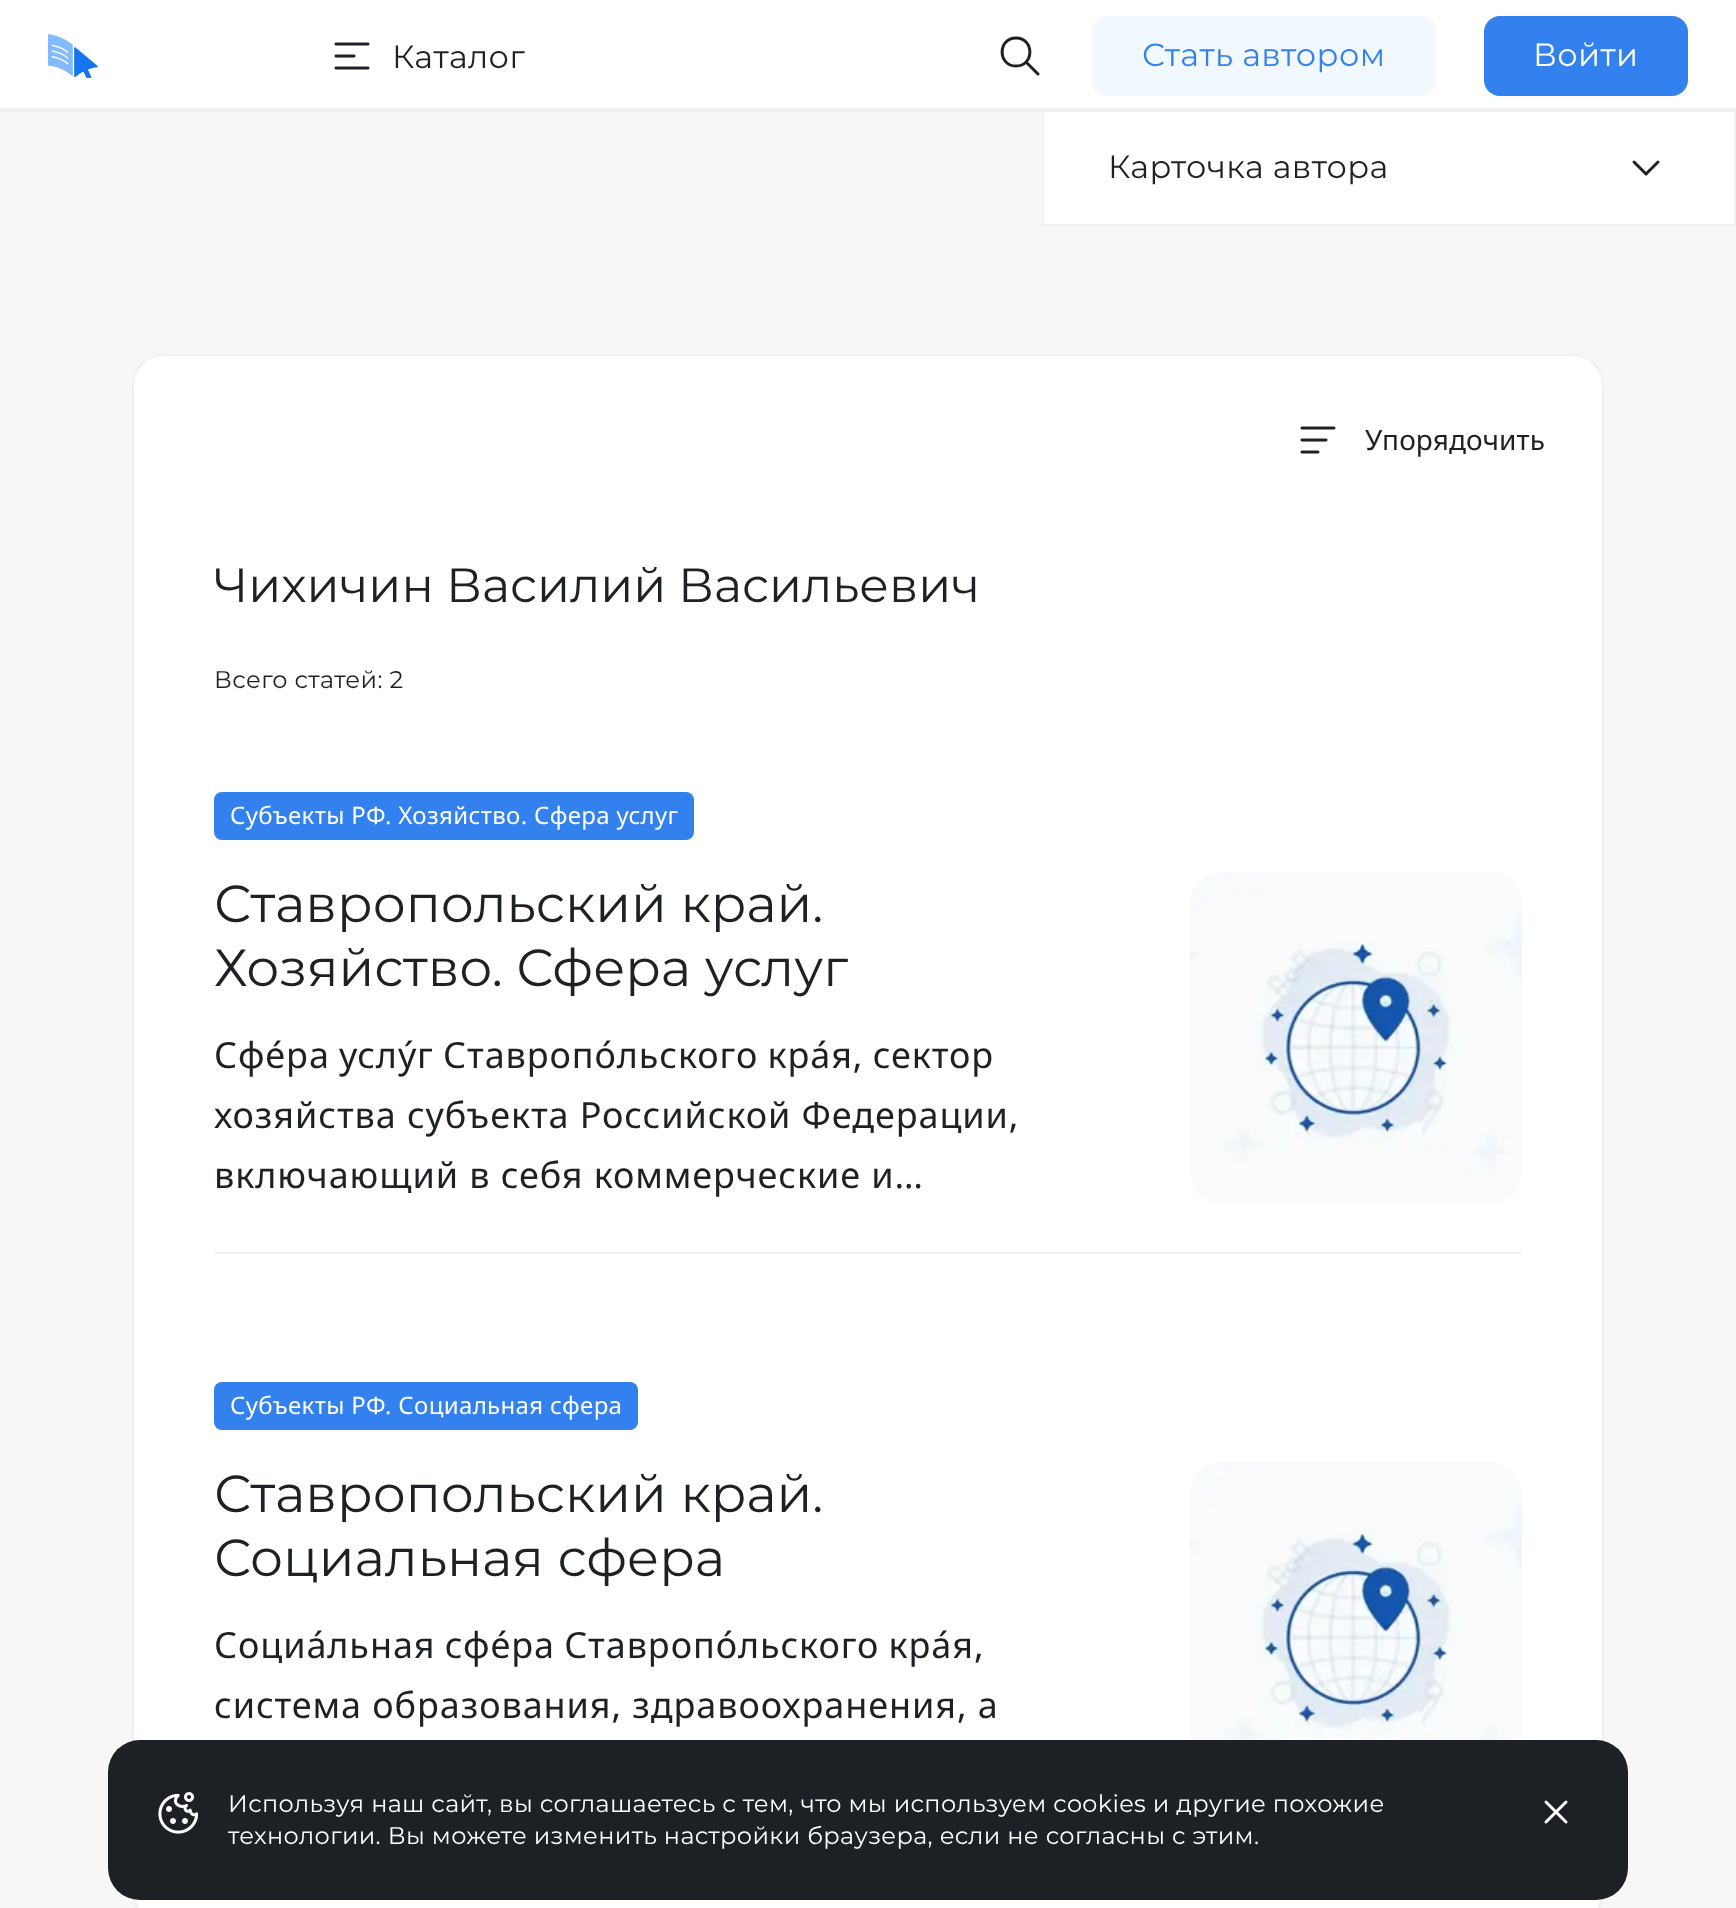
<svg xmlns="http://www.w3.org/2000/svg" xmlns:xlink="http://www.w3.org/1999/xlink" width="1736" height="1908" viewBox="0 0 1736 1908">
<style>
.cls-1{font:32px Montserrat;letter-spacing:0.4px;fill:#1d2126}
.cls-2{font:32px Montserrat;letter-spacing:0.4px;fill:#3380ef}
.cls-3{font:32px Montserrat;letter-spacing:0.4px;fill:#ffffff}
.cls-4{font:28px Noto Sans;letter-spacing:0.1px;fill:#1d2126}
.cls-5{font:48px Montserrat;fill:#1d2126}
.cls-6{font:24px Montserrat;letter-spacing:0.35px;fill:#1d2126}
.cls-7{font:24px Noto Sans;letter-spacing:0.35px;fill:#ffffff}
.cls-8{font:52px Montserrat;fill:#1d2126}
.cls-9{font:36px Noto Sans;letter-spacing:0.9px;fill:#1d2126}
.cls-10{font:24px Montserrat;letter-spacing:0.35px;fill:#ffffff}
</style>
<rect width="100%" height="100%" fill="#f7f7f7"/>
<rect fill="#ffffff" x="0" y="0" width="1736" height="108"/>
<rect fill="#f0f0f0" x="0" y="108" width="1736" height="4"/>
<image xlink:href="image0.png" x="48" y="34" width="50" height="44"/>
<image xlink:href="image1.png" x="334" y="42" width="36" height="28"/>
<path fill="none" stroke="#1d2126" stroke-width="3" stroke-linecap="round" stroke-linejoin="round" d="M1016 66C1034.5 66 1034.5 38 1016 38C997.5 38 997.5 66 1016 66ZM1038 74L1027 63"/>
<rect fill="#f1f8ff" x="1092" y="16" width="344" height="80" rx="16"/>
<rect fill="#3380ef" x="1484" y="16" width="204" height="80" rx="16"/>
<rect fill="#ffffff" x="1044" y="112" width="690" height="112"/>
<rect fill="#f0f0f0" x="1734" y="112" width="2" height="114"/>
<rect fill="#f0f0f0" x="1042" y="224" width="694" height="2"/>
<rect fill="#f0f0f0" x="1042" y="112" width="2" height="114"/>
<path fill="none" stroke="#1d2126" stroke-width="3" stroke-linecap="round" d="M1634 162L1646 174L1658 162"/>
<rect fill="#ffffff" stroke="#f0f0f0" stroke-width="2" x="133" y="355" width="1470" height="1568" rx="31"/>
<image xlink:href="image2.png" x="1300" y="426" width="36" height="28"/>
<rect fill="#3380ef" x="214" y="792" width="480" height="48" rx="8"/>
<image xlink:href="image3.png" x="1190" y="872" width="332" height="332"/>
<rect fill="#f0f0f0" x="214" y="1252" width="1308" height="2" rx="1"/>
<rect fill="#3380ef" x="214" y="1382" width="424" height="48" rx="8"/>
<image xlink:href="image4.png" x="1190" y="1462" width="332" height="278"/>
<rect fill="#1d2126" x="108" y="1740" width="1520" height="160" rx="32"/>
<image xlink:href="image5.png" x="158" y="1792" width="41" height="42"/>
<path fill="none" stroke="#ffffff" stroke-width="3" stroke-linecap="round" stroke-linejoin="round" d="M1566 1822L1546 1802M1566 1802L1546 1822"/>
<text class="cls-1" x="392" y="68">Каталог</text>
<text class="cls-2" x="1142" y="66">Стать автором</text>
<text class="cls-3" x="1533" y="66">Войти</text>
<text class="cls-1" x="1108" y="178">Карточка автора</text>
<text class="cls-4" x="1365" y="450">Упорядочить</text>
<text class="cls-5" x="214" y="602">Чихичин</text>
<text class="cls-5" x="446" y="602">Василий</text>
<text class="cls-5" x="678" y="602">Васильевич</text>
<text class="cls-6" x="214" y="688">Всего статей: 2</text>
<text class="cls-7" x="230" y="824">Субъекты РФ. Хозяйство. Сфера услуг</text>
<text class="cls-8"><tspan x="214" y="922">Ставропольский край.</tspan><tspan x="214" y="986">Хозяйство. Сфера услуг</tspan></text>
<text class="cls-9"><tspan x="214" y="1068" word-spacing="-1">Сфе́ра услу́г Ставропо́льского кра́я, сектор</tspan><tspan x="214" y="1128">хозяйства субъекта Российской Федерации,</tspan><tspan x="214" y="1188">включающий в себя коммерческие и…</tspan></text>
<text class="cls-7" x="230" y="1414">Субъекты РФ. Социальная сфера</text>
<text class="cls-8"><tspan x="214" y="1512">Ставропольский край.</tspan><tspan x="214" y="1576">Социальная сфера</tspan></text>
<text class="cls-9"><tspan x="214" y="1658" word-spacing="-1">Социа́льная сфе́ра Ставропо́льского кра́я,</tspan><tspan x="214" y="1718">система образования, здравоохранения, а</tspan></text>
<text class="cls-10"><tspan x="228" y="1812">Используя наш сайт, вы соглашаетесь с тем, что мы используем cookies и другие похожие</tspan><tspan x="228" y="1844">технологии. Вы можете изменить настройки браузера, если не согласны с этим.</tspan></text>
</svg>
